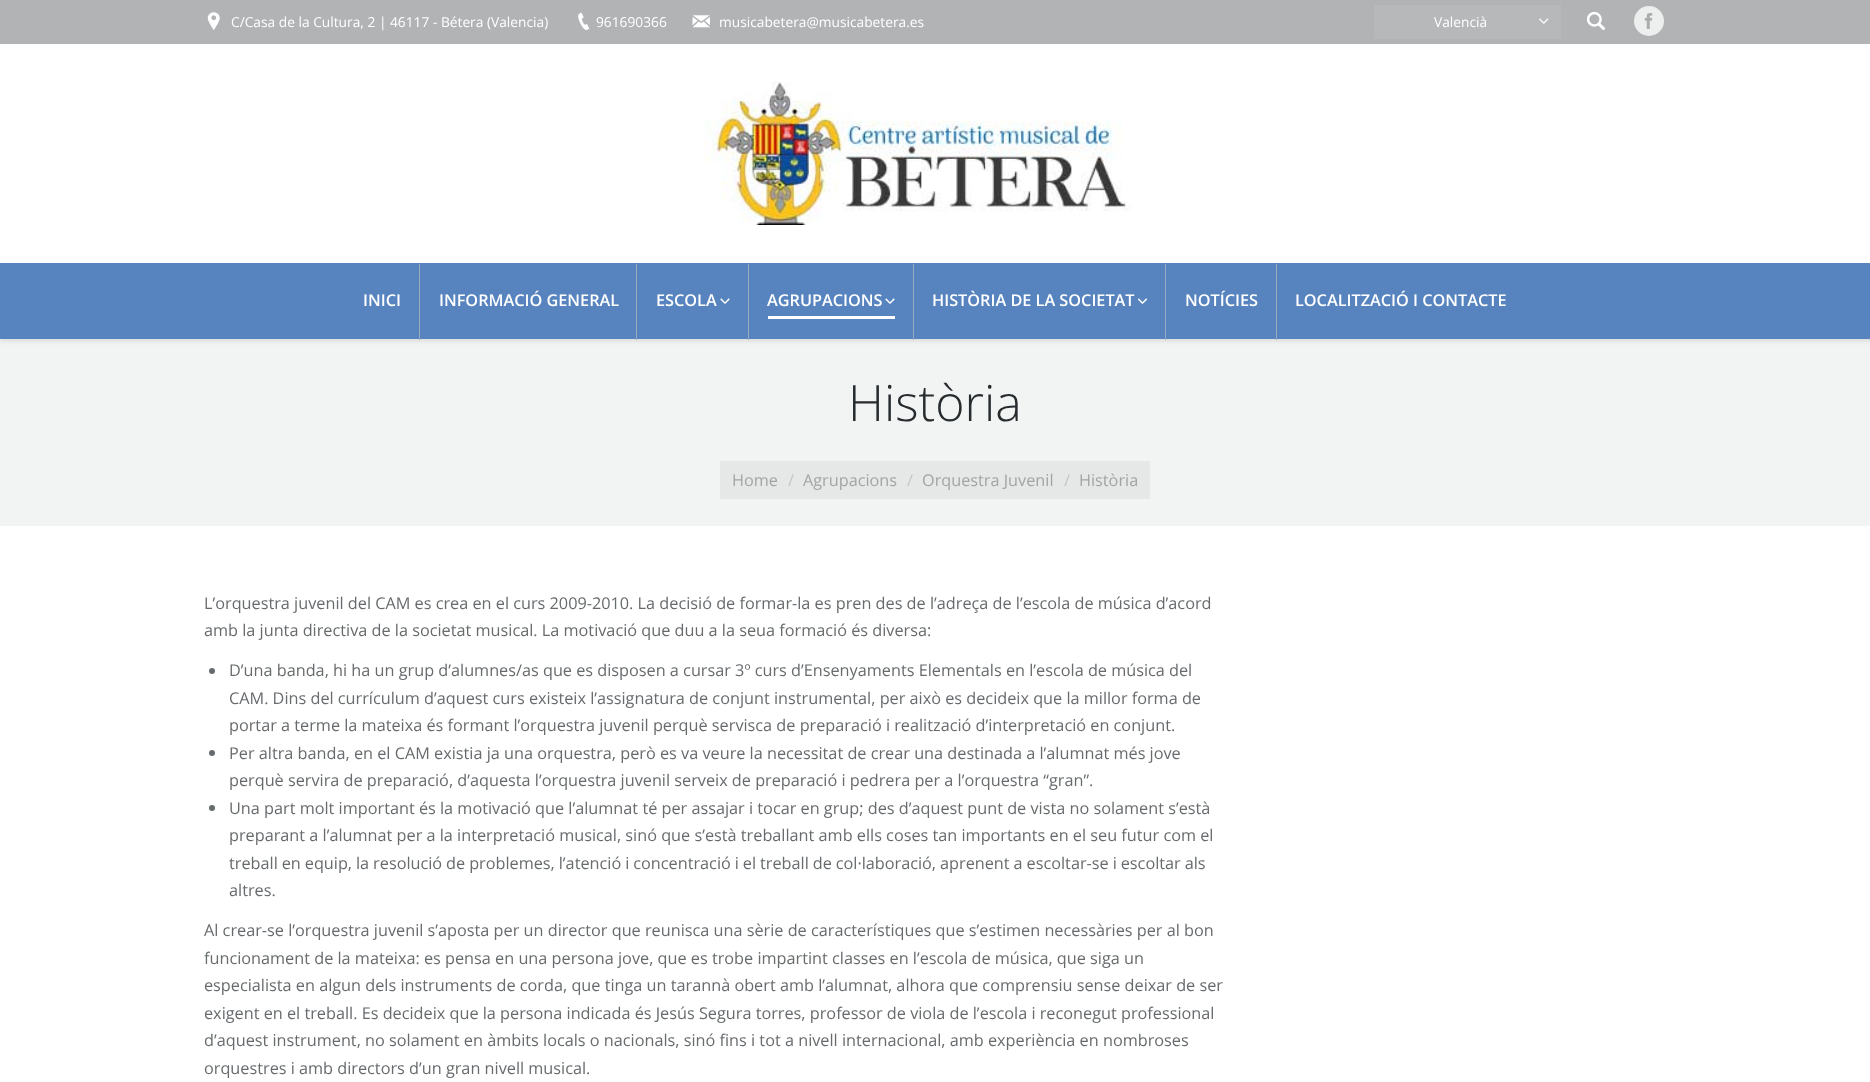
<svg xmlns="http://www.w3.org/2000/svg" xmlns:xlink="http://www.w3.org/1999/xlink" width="1870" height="1082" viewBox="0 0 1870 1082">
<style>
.cls-1{font:13.75px Open Sans;fill:#ffffff}
.cls-2{font:600 16.25px Open Sans;fill:#ffffff}
.cls-3{font:300 50px Open Sans;fill:#262b2e}
.cls-4{font:16.25px Open Sans;fill:#a2a5a6}
.cls-5{font:16.25px Open Sans;fill:#c4c6c7}
.cls-6{font:16.25px Open Sans;fill:#676b6d}
</style>
<rect width="100%" height="100%" fill="#ffffff"/>
<rect fill="#f2f3f3" x="0" y="339" width="1870" height="187"/>
<rect fill="#000000" fill-opacity="0.1" filter="blur(2.5px)" x="0" y="0" width="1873" height="341"/>
<rect fill="#ffffff" x="0" y="44" width="1870" height="219"/>
<rect fill="#b1b3b5" x="0" y="0" width="1870" height="44"/>
<image xlink:href="image0.png" x="207" y="12" width="13" height="18"/>
<image xlink:href="image1.png" x="578" y="12" width="12" height="18"/>
<image xlink:href="image2.png" x="692" y="15" width="18" height="13"/>
<rect fill="#b6b8ba" x="1374" y="5" width="187" height="34"/>
<image xlink:href="image3.png" x="1539" y="18" width="10" height="6"/>
<image xlink:href="image4.png" x="1586" y="11" width="20" height="20"/>
<circle fill="#edeeee" cx="1649" cy="21" r="15"/>
<image xlink:href="image5.png" x="1644" y="13" width="9" height="16"/>
<image xlink:href="image6.png" x="703" y="81" width="428" height="144"/>
<rect fill="#5784bf" x="0" y="263" width="1870" height="76"/>
<rect fill="#97abbf" x="419" y="264" width="1" height="76"/>
<rect fill="#97abbf" x="636" y="264" width="1" height="76"/>
<image xlink:href="image7.png" x="720" y="298" width="10" height="6"/>
<rect fill="#97abbf" x="748" y="264" width="1" height="76"/>
<image xlink:href="image7.png" x="885" y="298" width="10" height="6"/>
<rect fill="#ffffff" x="768" y="316" width="127" height="3"/>
<rect fill="#97abbf" x="913" y="264" width="1" height="76"/>
<image xlink:href="image8.png" x="1138" y="298" width="10" height="6"/>
<rect fill="#97abbf" x="1165" y="264" width="1" height="76"/>
<rect fill="#97abbf" x="1276" y="264" width="1" height="76"/>
<rect fill="#e6e7e7" x="720" y="461" width="430" height="38" rx="1"/>
<circle fill="#676b6d" cx="212" cy="671" r="3"/>
<circle fill="#676b6d" cx="212" cy="753" r="3"/>
<circle fill="#676b6d" cx="212" cy="808" r="3"/>
<text class="cls-1" x="231" y="27">C/Casa de la Cultura, 2 | 46117 - Bétera (Valencia)</text>
<text class="cls-1" x="596" y="27">961690366</text>
<text class="cls-1" x="719" y="27">musicabetera@musicabetera.es</text>
<text class="cls-1" x="1434" y="27">Valencià</text>
<text class="cls-2" x="363" y="306">INICI</text>
<text class="cls-2" x="439" y="306">INFORMACIÓ GENERAL</text>
<text class="cls-2" x="656" y="306">ESCOLA</text>
<text class="cls-2" x="767" y="306">AGRUPACIONS</text>
<text class="cls-2" x="932" y="306">HISTÒRIA DE LA SOCIETAT</text>
<text class="cls-2" x="1185" y="306">NOTÍCIES</text>
<text class="cls-2" x="1295" y="306">LOCALITZACIÓ I CONTACTE</text>
<text class="cls-3" x="848" y="421">Història</text>
<text class="cls-4" x="732" y="486">Home</text>
<text class="cls-5" x="788" y="486">/</text>
<text class="cls-4" x="803" y="486">Agrupacions</text>
<text class="cls-5" x="907" y="486">/</text>
<text class="cls-4" x="922" y="486">Orquestra Juvenil</text>
<text class="cls-5" x="1064" y="486">/</text>
<text class="cls-4" x="1079" y="486">Història</text>
<text class="cls-6"><tspan x="204" y="609">L’orquestra juvenil del CAM es crea en el curs 2009-2010. La decisió de formar-la es pren des de l’adreça de l’escola de música d’acord</tspan><tspan x="204" y="636">amb la junta directiva de la societat musical. La motivació que duu a la seua formació és diversa:</tspan></text>
<text class="cls-6"><tspan x="229" y="676">D’una banda, hi ha un grup d’alumnes/as que es disposen a cursar 3º curs d’Ensenyaments Elementals en l’escola de música del</tspan><tspan x="229" y="704">CAM. Dins del currículum d’aquest curs existeix l’assignatura de conjunt instrumental, per això es decideix que la millor forma de</tspan><tspan x="229" y="731">portar a terme la mateixa és formant l’orquestra juvenil perquè servisca de preparació i realització d’interpretació en conjunt.</tspan><tspan x="229" y="759">Per altra banda, en el CAM existia ja una orquestra, però es va veure la necessitat de crear una destinada a l’alumnat més jove</tspan><tspan x="229" y="786">perquè servira de preparació, d’aquesta l’orquestra juvenil serveix de preparació i pedrera per a l’orquestra “gran”.</tspan><tspan x="229" y="814">Una part molt important és la motivació que l’alumnat té per assajar i tocar en grup; des d’aquest punt de vista no solament s’està</tspan><tspan x="229" y="841">preparant a l’alumnat per a la interpretació musical, sinó que s’està treballant amb ells coses tan importants en el seu futur com el</tspan><tspan x="229" y="869" word-spacing="-0.25">treball en equip, la resolució de problemes, l’atenció i concentració i el treball de col·laboració, aprenent a escoltar-se i escoltar als</tspan><tspan x="229" y="896">altres.</tspan></text>
<text class="cls-6"><tspan x="204" y="936">Al crear-se l’orquestra juvenil s’aposta per un director que reunisca una sèrie de característiques que s’estimen necessàries per al bon</tspan><tspan x="204" y="964">funcionament de la mateixa: es pensa en una persona jove, que es trobe impartint classes en l’escola de música, que siga un</tspan><tspan x="204" y="991">especialista en algun dels instruments de corda, que tinga un tarannà obert amb l’alumnat, alhora que comprensiu sense deixar de ser</tspan><tspan x="204" y="1019">exigent en el treball. Es decideix que la persona indicada és Jesús Segura torres, professor de viola de l’escola i reconegut professional</tspan><tspan x="204" y="1046">d’aquest instrument, no solament en àmbits locals o nacionals, sinó fins i tot a nivell internacional, amb experiència en nombroses</tspan><tspan x="204" y="1074">orquestres i amb directors d’un gran nivell musical.</tspan></text>
</svg>
